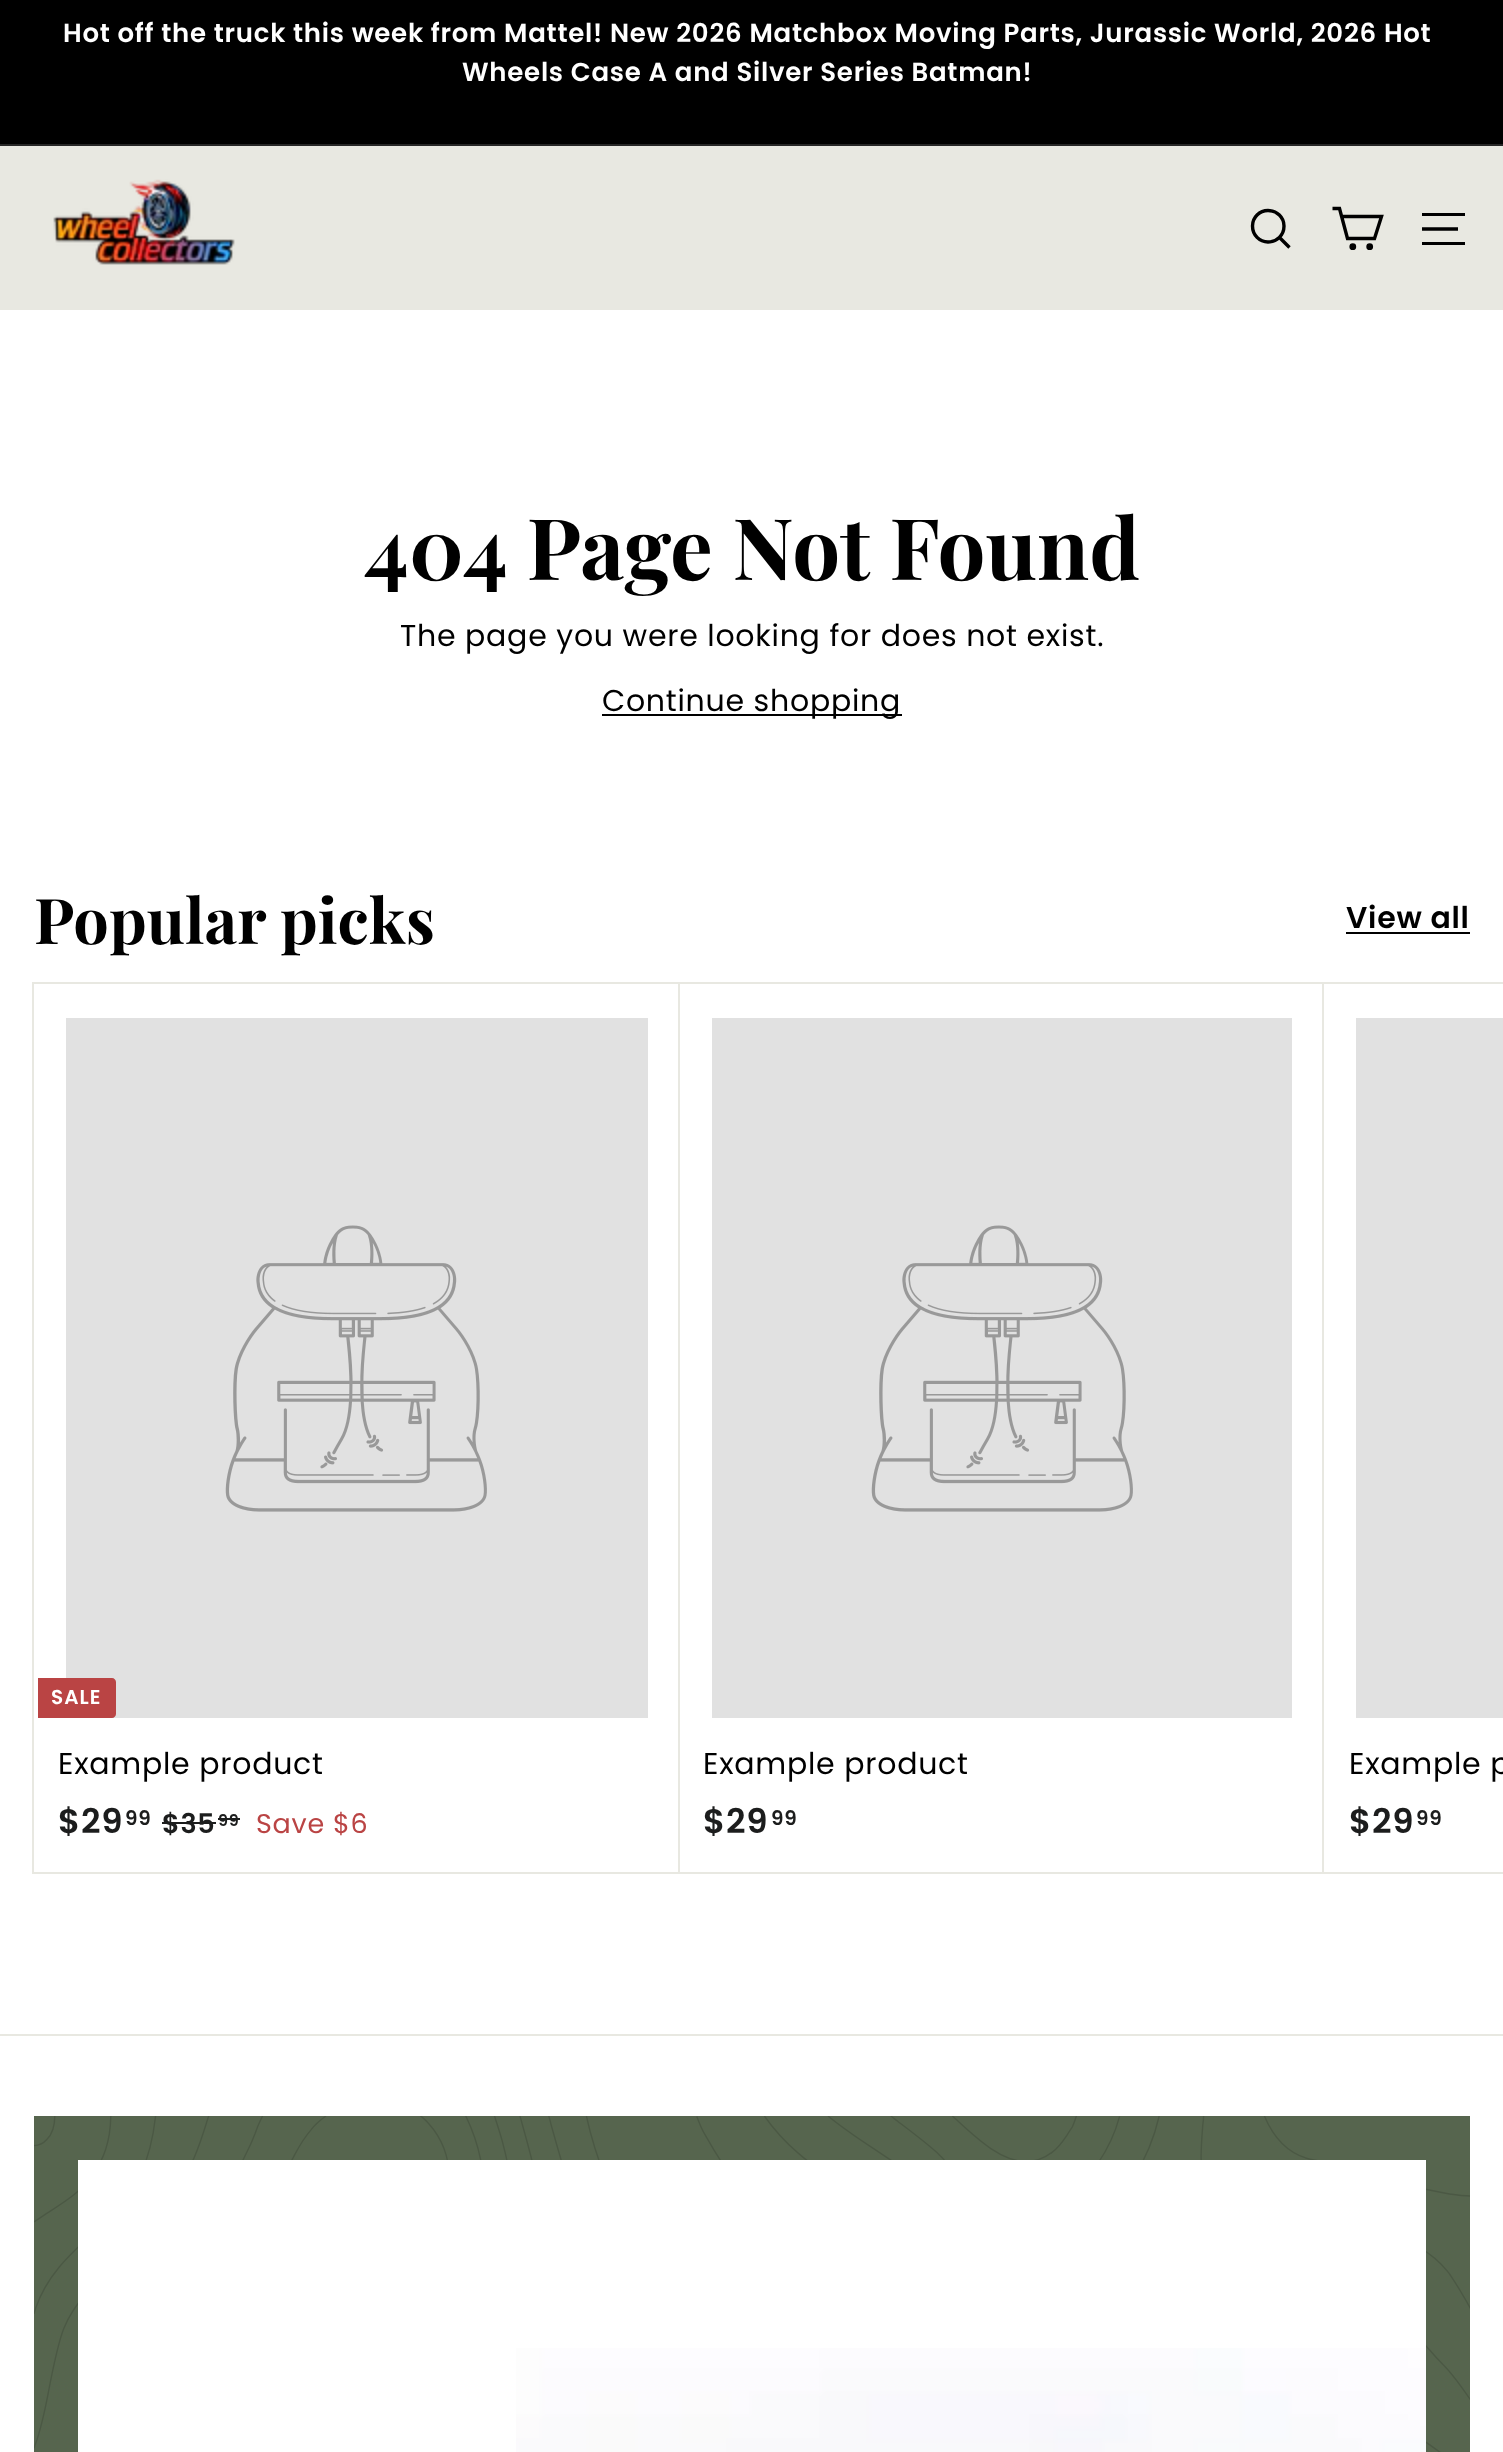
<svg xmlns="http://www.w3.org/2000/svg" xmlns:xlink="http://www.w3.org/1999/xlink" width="1503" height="2452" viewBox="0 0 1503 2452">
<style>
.cls-1{font:600 26px Poppins;letter-spacing:0.75px;fill:#ffffff}
.cls-2{font:bold 85px Playfair Display;fill:#000000}
.cls-3{font:30px Poppins;letter-spacing:0.75px;fill:#000000}
.cls-4{font:bold 63px Playfair Display;fill:#000000}
.cls-5{font:600 30px Poppins;letter-spacing:0.75px;fill:#000000}
.cls-6{font:600 20px Poppins;letter-spacing:1px;fill:#ffffff}
.cls-7{font:600 34px Poppins;letter-spacing:0.75px;fill:#1c1d1d}
.cls-8{font:600 20px Poppins;letter-spacing:0.75px;fill:#1c1d1d}
.cls-9{font:600 27px Poppins;letter-spacing:0.75px;fill:#1c1d1d}
.cls-10{font:600 16px Poppins;letter-spacing:0.75px;fill:#1c1d1d}
.cls-11{font:27px Poppins;letter-spacing:0.75px;fill:#ba4444}
</style>
<rect width="100%" height="100%" fill="#ffffff"/>
<rect fill="#000000" x="0" y="0" width="1503" height="144"/>
<rect fill="#262626" x="0" y="144" width="1503" height="2"/>
<rect fill="#e8e8e1" x="0" y="146" width="1503" height="164"/>
<image xlink:href="image0.png" x="53" y="179" width="182" height="86"/>
<path fill="none" stroke="#000000" stroke-width="3.4" d="M1284 226C1284 235 1277 242 1268 242C1259.5 242 1252.5 235 1252.5 226C1252.5 217.5 1259.5 210.5 1268 210.5C1277 210.5 1284 217.5 1284 226ZM1289.5 247.5L1279.5 237.5"/>
<path fill="none" stroke="#000000" stroke-width="3.4" d="M1342 216.5H1381.5L1374.5 238.5H1347.5L1339.5 208.5H1332.5"/>
<circle fill="none" stroke="#000000" stroke-width="3.4" cx="1352.8" cy="246.7" r="1.7"/>
<circle fill="none" stroke="#000000" stroke-width="3.4" cx="1369.7" cy="246.7" r="1.7"/>
<rect fill="#000000" x="1422" y="213" width="43" height="3"/>
<path fill="none" stroke="#000000" stroke-width="3.4" d="M1422 229H1458"/>
<rect fill="#000000" x="1422" y="242" width="43" height="3"/>
<rect fill="#000000" x="602" y="714" width="300" height="2"/>
<rect fill="#000000" x="1346" y="932" width="124" height="2"/>
<rect fill="#e1e1e1" x="66" y="1018" width="582" height="700"/>
<image xlink:href="image1.png" x="225" y="1225" width="262" height="287"/>
<rect fill="#1c1d1d" x="162" y="1822" width="54" height="2"/>
<rect fill="#1c1d1d" x="218" y="1818" width="22" height="2"/>
<rect fill="none" stroke="#e8e8e1" stroke-width="2" x="33" y="983" width="648" height="890"/>
<path fill="#ba4444" d="M38 1678H112C114 1678 116 1680 116 1682V1714C116 1716 114 1718 112 1718H38Z"/>
<rect fill="#ffffff" x="680" y="984" width="2" height="888"/>
<rect fill="#e1e1e1" x="712" y="1018" width="580" height="700"/>
<image xlink:href="image1.png" x="871" y="1225" width="262" height="287"/>
<rect fill="none" stroke="#e8e8e1" stroke-width="2" x="679" y="983" width="646" height="890"/>
<rect fill="#ffffff" x="1324" y="984" width="2" height="888"/>
<rect fill="#e1e1e1" x="1356" y="1018" width="147" height="700"/>
<rect fill="none" stroke="#e8e8e1" stroke-width="2" x="1323" y="983" width="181" height="890"/>
<rect fill="#e8e8e1" x="0" y="2034" width="1503" height="2"/>
<rect fill="#56654e" x="34" y="2116" width="1436" height="336"/>
<image xlink:href="image2.png" x="34" y="2116" width="1436" height="336"/>
<rect fill="#ffffff" x="78" y="2160" width="1348" height="292"/>
<image xlink:href="image3.png" x="516" y="2348" width="910" height="104"/>
<text class="cls-1" x="63" y="42">Hot off the truck this week from Mattel! New 2026 Matchbox Moving Parts, Jurassic World, 2026 Hot</text>
<text class="cls-1" x="462" y="81">Wheels Case A and Silver Series Batman!</text>
<text class="cls-2" x="364" y="580">404 Page Not Found</text>
<text class="cls-3" x="400" y="646">The page you were looking for does not exist.</text>
<text class="cls-3" x="602" y="711">Continue shopping</text>
<text class="cls-4" x="34" y="944">Popular picks</text>
<text class="cls-5" x="1346" y="928">View all</text>
<text class="cls-6" x="51" y="1704">SALE</text>
<text class="cls-3" x="58" y="1774">Example product</text>
<text class="cls-7" x="58" y="1833">$29</text>
<text class="cls-8" x="125" y="1825">99</text>
<text class="cls-9" x="162" y="1833">$35</text>
<text class="cls-10" x="218" y="1826">99</text>
<text class="cls-11" x="256" y="1833">Save $6</text>
<text class="cls-3" x="703" y="1774">Example product</text>
<text class="cls-7" x="703" y="1833">$29</text>
<text class="cls-8" x="771" y="1825">99</text>
<text class="cls-3" x="1349" y="1774">Example p</text>
<text class="cls-7" x="1349" y="1833">$29</text>
<text class="cls-8" x="1416" y="1825">99</text>
</svg>
